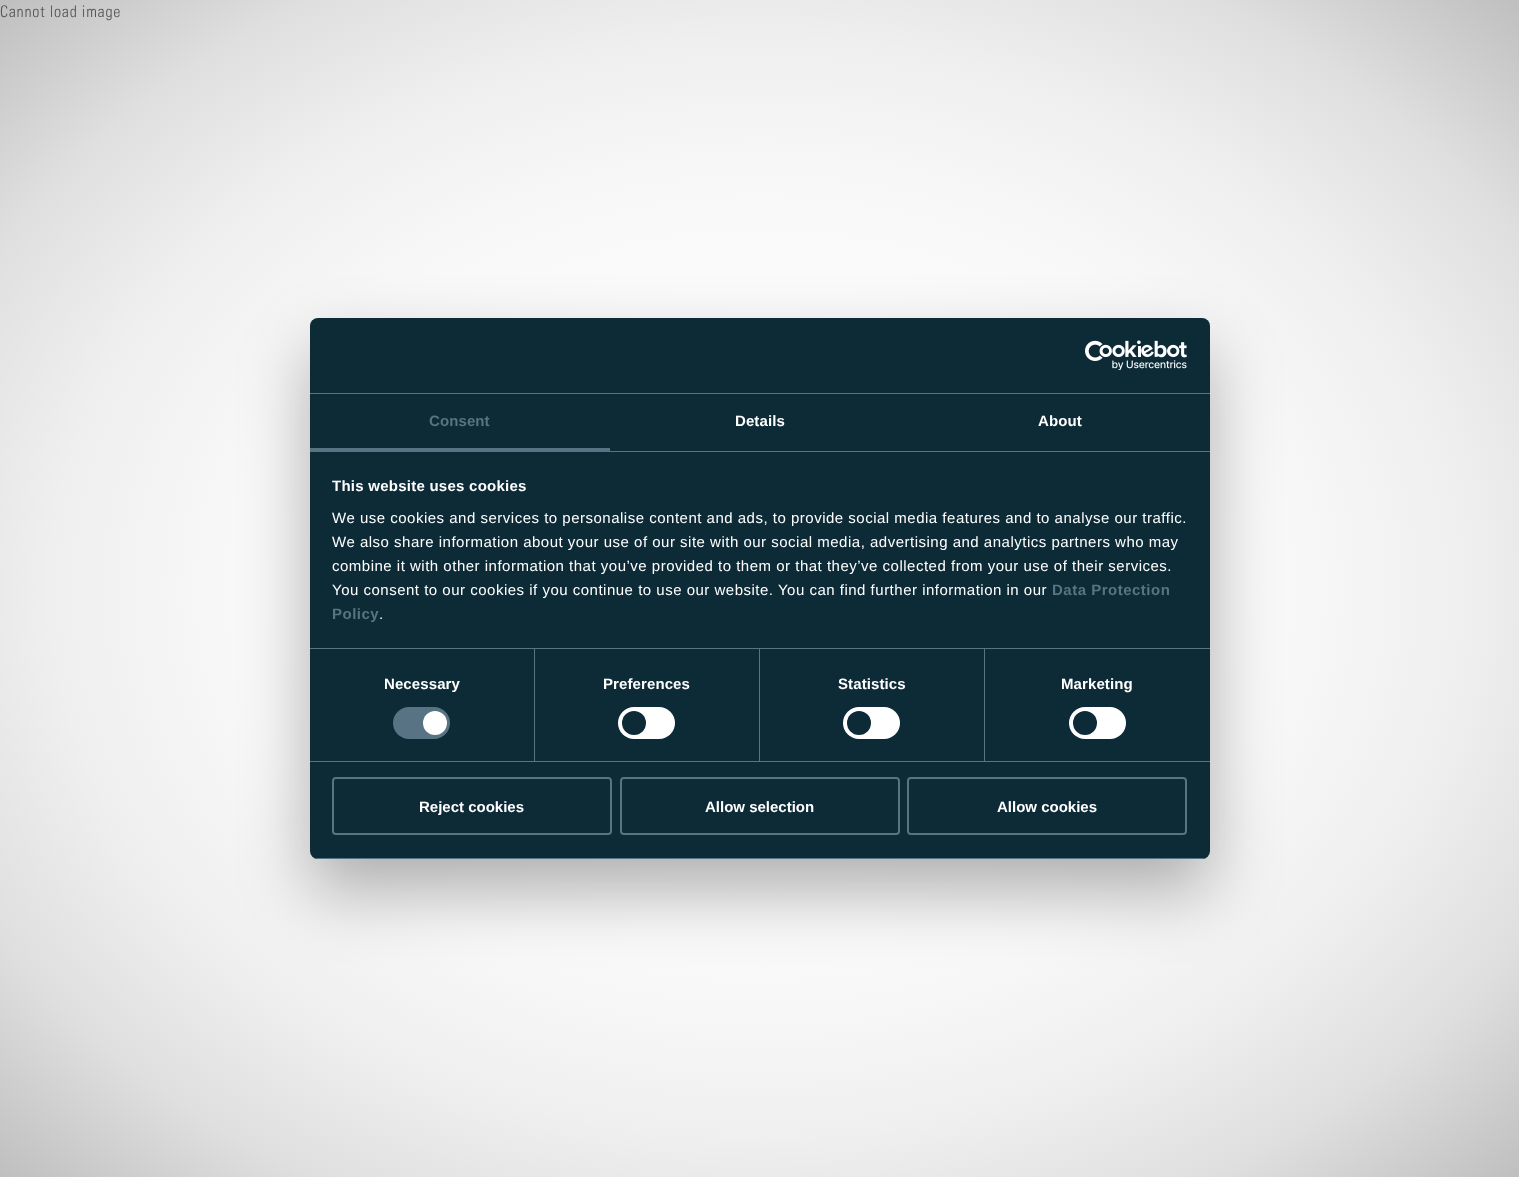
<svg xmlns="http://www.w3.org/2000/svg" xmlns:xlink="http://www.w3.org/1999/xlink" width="1519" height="1177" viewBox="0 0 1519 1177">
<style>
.cls-1{font:16px Univers;letter-spacing:0.75px;fill:#555555}
.cls-2{font:bold 15px Liberation Sans;letter-spacing:0.1px;fill:#587484}
.cls-3{font:bold 15px Liberation Sans;letter-spacing:0.1px;fill:#ffffff}
.cls-4{font:bold 15px Liberation Sans;letter-spacing:0.25px;fill:#ffffff}
.cls-5{font:15px Liberation Sans;letter-spacing:0.5px;fill:#ffffff}
.cls-6{font:bold 15px Liberation Sans;letter-spacing:0.5px;fill:#587484}
.cls-7{font:bold 15px Liberation Sans;fill:#ffffff}
</style>
<defs>
<radialGradient id="g1" gradientUnits="userSpaceOnUse" cx="0" cy="0" r="1" gradientTransform="matrix(1074 0 0 832 760 589)"><stop offset="0" stop-color="#ffffff"/><stop offset="0.16" stop-color="#fdfdfd"/><stop offset="0.33" stop-color="#fbfbfb"/><stop offset="0.49" stop-color="#f8f8f8"/><stop offset="0.66" stop-color="#efefef"/><stop offset="0.82" stop-color="#dfdfdf"/><stop offset="1" stop-color="#bfbfbf"/></radialGradient>
<clipPath id="clip1"><rect x="310" y="318" width="900" height="541" rx="8"/></clipPath>
</defs>
<rect width="100%" height="100%" fill="#ffffff"/>
<rect fill="url(#g1)" x="0" y="0" width="1519" height="1177"/>
<rect fill="#000000" fill-opacity="0.3" filter="blur(34px)" x="310" y="350" width="900" height="541" rx="8"/>
<rect fill="#0d2a37" x="310" y="318" width="900" height="541" rx="8"/>
<rect fill="#587484" x="310" y="393" width="900" height="1"/>
<image xlink:href="image0.png" x="1085" y="340" width="102" height="30"/>
<rect fill="#587484" x="310" y="451" width="900" height="1"/>
<rect fill="#587484" x="310" y="448" width="300" height="3"/>
<rect fill="#587484" x="310" y="648" width="900" height="1"/>
<rect fill="#587484" x="310" y="761" width="900" height="1"/>
<rect fill="#587484" x="534" y="649" width="1" height="112"/>
<rect fill="#587484" x="393" y="707" width="57" height="32" rx="16"/>
<circle fill="#ffffff" cx="435" cy="723" r="12"/>
<rect fill="#587484" x="759" y="649" width="1" height="112"/>
<rect fill="#ffffff" x="618" y="707" width="57" height="32" rx="16"/>
<circle fill="#0d2a37" cx="634" cy="723" r="12"/>
<rect fill="#587484" x="984" y="649" width="1" height="112"/>
<rect fill="#ffffff" x="843" y="707" width="57" height="32" rx="16"/>
<circle fill="#0d2a37" cx="859" cy="723" r="12"/>
<rect fill="#ffffff" x="1069" y="707" width="57" height="32" rx="16"/>
<circle fill="#0d2a37" cx="1085" cy="723" r="12"/>
<g clip-path="url(#clip1)">
<rect fill="#587484" x="310" y="858" width="900" height="1"/>
</g>
<rect fill="none" stroke="#587484" stroke-width="2" x="333" y="778" width="278" height="56" rx="3"/>
<rect fill="none" stroke="#587484" stroke-width="2" x="621" y="778" width="278" height="56" rx="3"/>
<rect fill="none" stroke="#587484" stroke-width="2" x="908" y="778" width="278" height="56" rx="3"/>
<text class="cls-1" x="0" y="17">Cannot load image</text>
<text class="cls-2" x="429" y="426">Consent</text>
<text class="cls-3" x="735" y="426">Details</text>
<text class="cls-3" x="1038" y="426">About</text>
<text class="cls-4" x="332" y="491">This website uses cookies</text>
<text class="cls-5"><tspan x="332" y="523">We use cookies and services to personalise content and ads, to provide social media features and to analyse our traffic.</tspan><tspan x="332" y="547">We also share information about your use of our site with our social media, advertising and analytics partners who may</tspan><tspan x="332" y="571">combine it with other information that you’ve provided to them or that they’ve collected from your use of their services.</tspan><tspan x="332" y="595">You consent to our cookies if you continue to use our website. You can find further information in our</tspan></text>
<text class="cls-6" x="1052" y="595">Data Protection</text>
<text class="cls-6" x="332" y="619">Policy</text>
<text class="cls-5" x="379" y="619">.</text>
<text class="cls-3" x="384" y="689">Necessary</text>
<text class="cls-3" x="603" y="689">Preferences</text>
<text class="cls-3" x="838" y="689">Statistics</text>
<text class="cls-3" x="1061" y="689">Marketing</text>
<text class="cls-7" x="419" y="812">Reject cookies</text>
<text class="cls-7" x="705" y="812">Allow selection</text>
<text class="cls-7" x="997" y="812">Allow cookies</text>
</svg>
